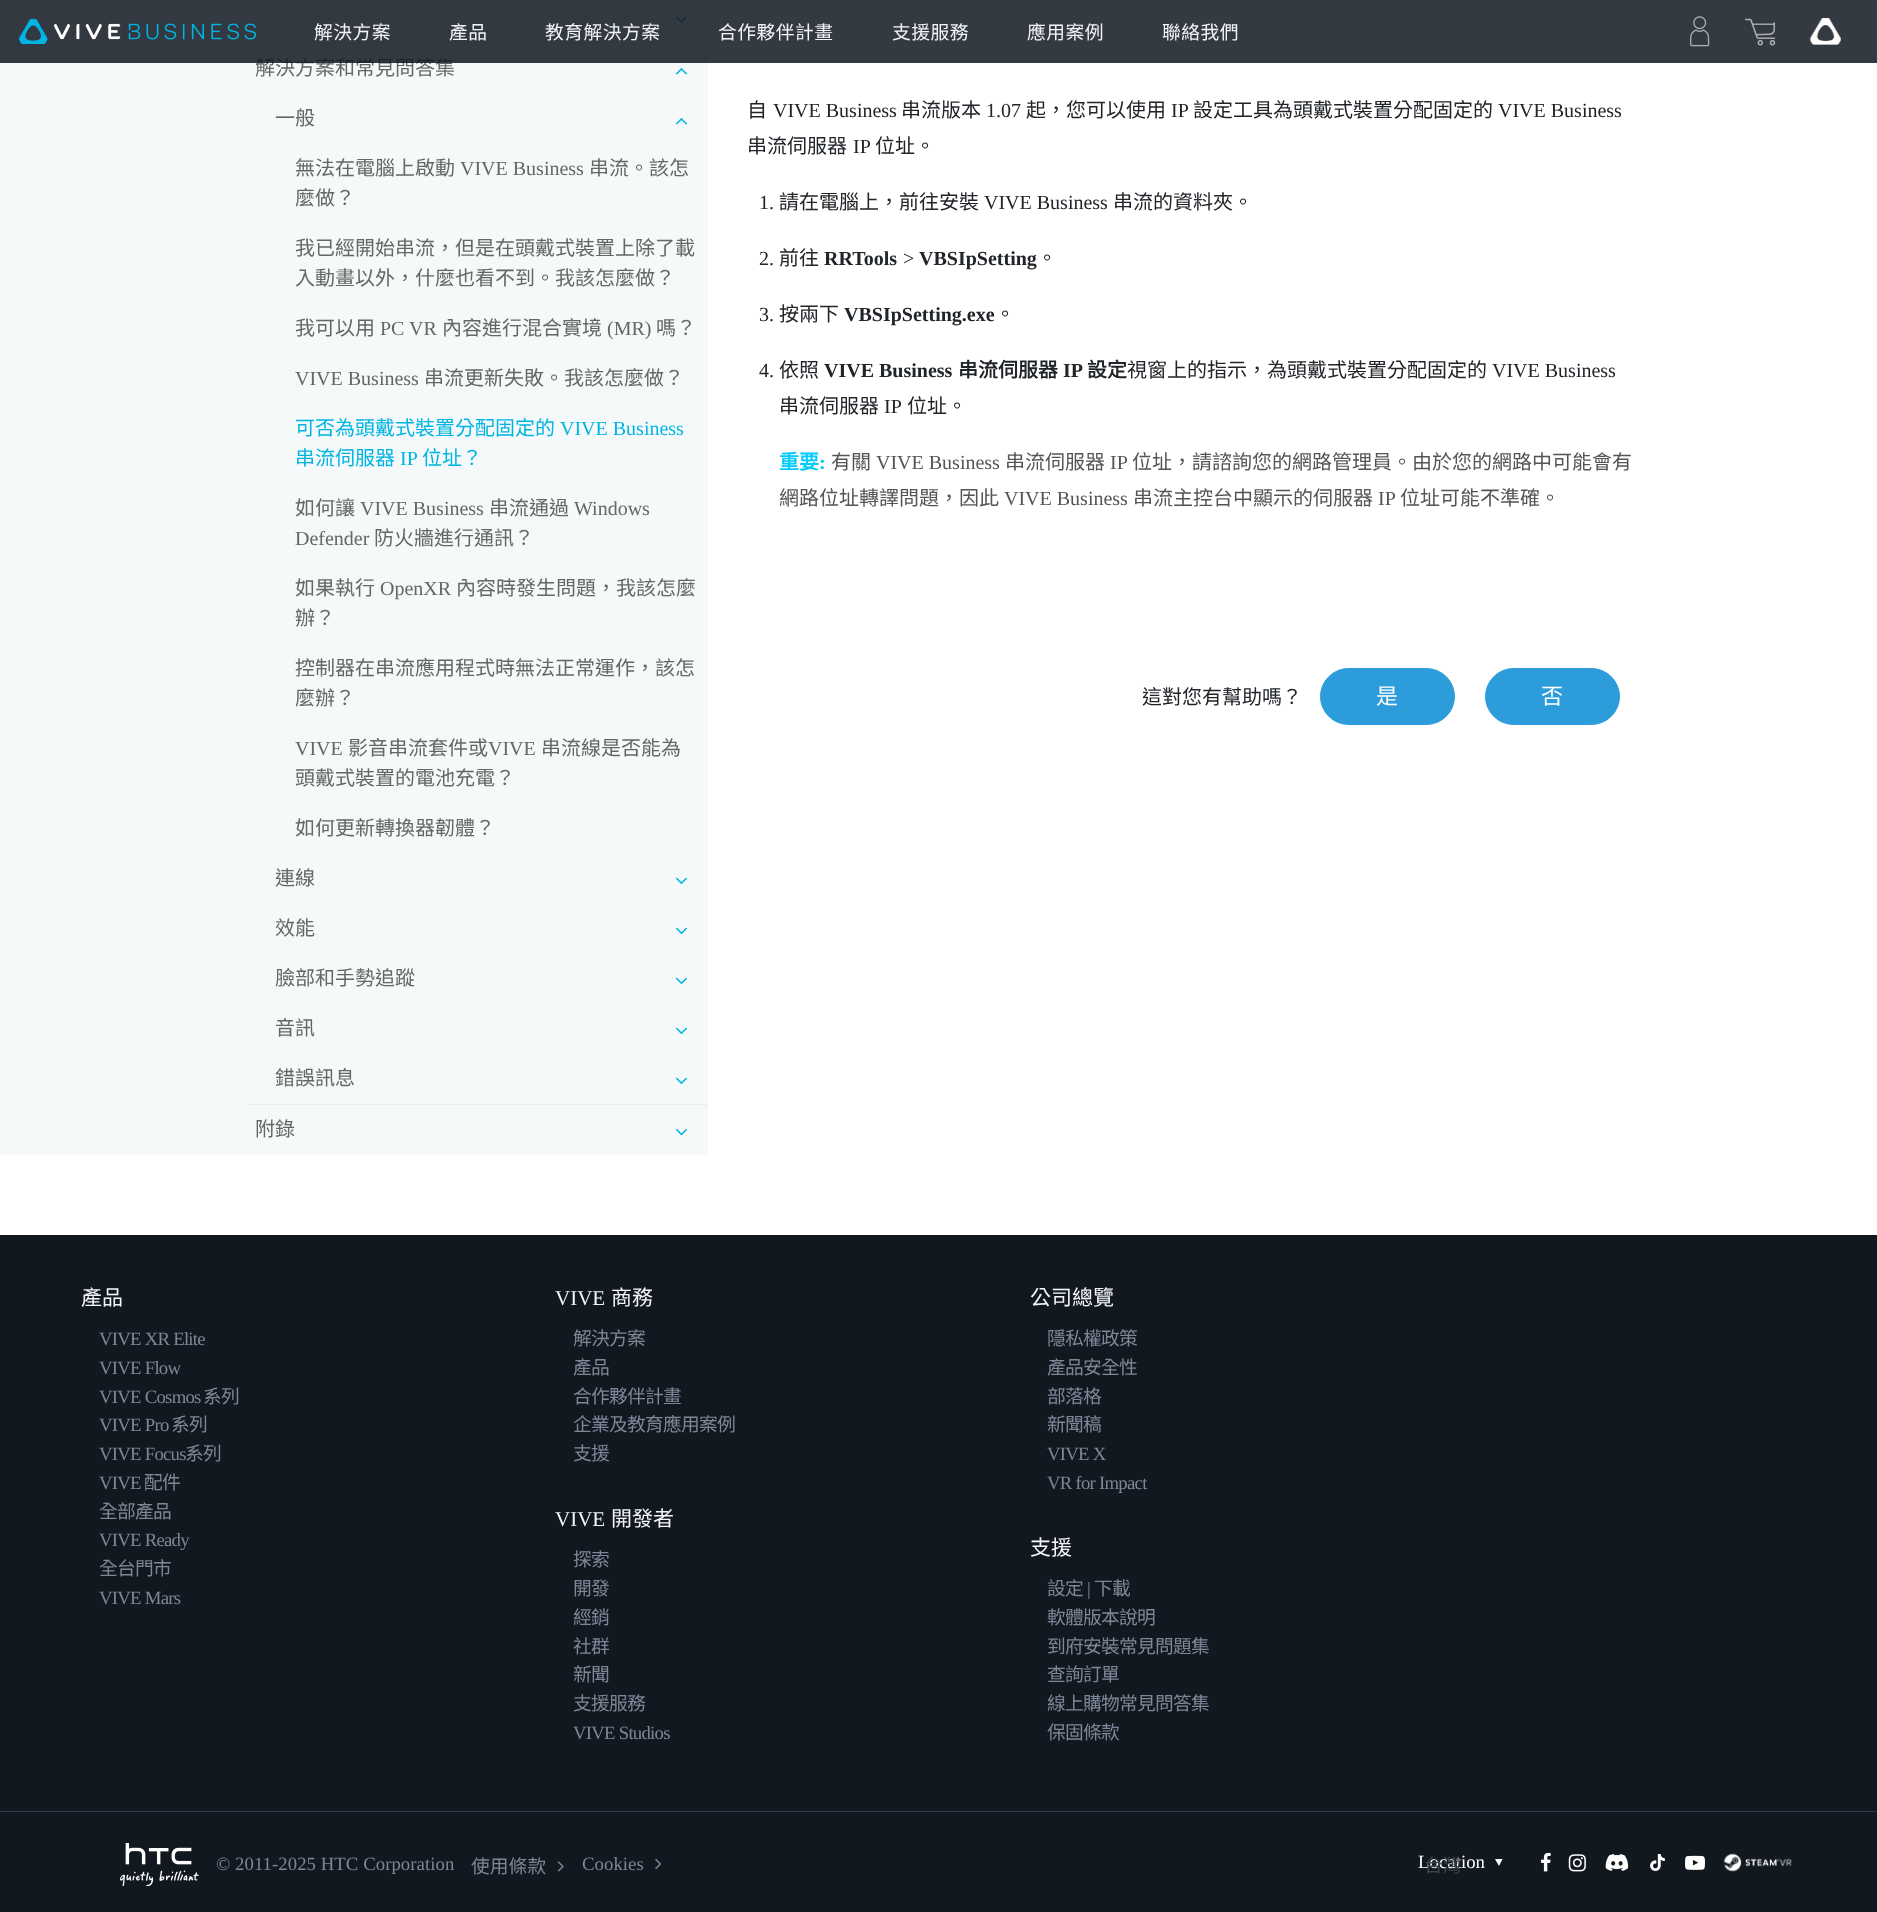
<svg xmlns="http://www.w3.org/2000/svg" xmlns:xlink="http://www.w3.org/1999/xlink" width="1877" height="1912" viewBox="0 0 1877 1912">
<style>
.cls-1{font:20px Noto Sans CJK TC;fill:#666666}
.cls-2{font:18.75px Noto Sans CJK TC;letter-spacing:0.5px;fill:#f2f4f8}
.cls-3{font:20px Liberation Serif;fill:#666666}
.cls-4{font:20px Noto Sans CJK TC;fill:#00b5e2}
.cls-5{font:20px Liberation Serif;fill:#00b5e2}
.cls-6{font:20px Noto Sans CJK TC;fill:#212529}
.cls-7{font:20px Liberation Serif;fill:#212529}
.cls-8{font:bold 20px Liberation Serif;fill:#212529}
.cls-9{font:bold 20px Noto Sans CJK TC;fill:#212529}
.cls-10{font:bold 20px Noto Sans CJK TC;fill:#00c9fb}
.cls-11{font:bold 20px Liberation Serif;fill:#00c9fb}
.cls-12{font:20px Noto Sans CJK TC;fill:#555555}
.cls-13{font:20px Liberation Serif;fill:#555555}
.cls-14{font:22px Noto Sans CJK TC;fill:#ffffff}
.cls-15{font:21px Noto Sans CJK TC;fill:#f2f4f8}
.cls-16{font:18.75px Liberation Serif;letter-spacing:-0.75px;fill:#7d8797}
.cls-17{font:18.75px Noto Sans CJK TC;letter-spacing:-0.75px;fill:#7d8797}
.cls-18{font:21px Liberation Serif;fill:#f2f4f8}
.cls-19{font:18.75px Liberation Serif;letter-spacing:0.05px;fill:#7d8797}
.cls-20{font:18.75px Noto Sans CJK TC;letter-spacing:0.05px;fill:#7d8797}
.cls-21{font:18.75px Liberation Serif;letter-spacing:0.05px;fill:#ffffff}
.cls-22{font:18.75px Noto Sans CJK TC;fill:#3f454b}
</style>
<rect width="100%" height="100%" fill="#ffffff"/>
<rect fill="#f5f9fa" x="0" y="0" width="708" height="1155"/>
<rect fill="#eeeeee" x="245" y="43" width="463" height="1"/>
<image xlink:href="image4.png" x="675" y="16" width="12" height="7"/>
<rect fill="#eeeeee" x="245" y="1104" width="463" height="1"/>
<image xlink:href="image5.png" x="675" y="68" width="12" height="7"/>
<image xlink:href="image5.png" x="675" y="118" width="12" height="7"/>
<image xlink:href="image6.png" x="675" y="877" width="12" height="8"/>
<image xlink:href="image6.png" x="675" y="927" width="12" height="8"/>
<image xlink:href="image6.png" x="675" y="977" width="12" height="8"/>
<image xlink:href="image6.png" x="675" y="1027" width="12" height="8"/>
<image xlink:href="image6.png" x="675" y="1077" width="12" height="8"/>
<image xlink:href="image7.png" x="675" y="1128" width="12" height="8"/>
<rect fill="#2c9cdb" stroke="#2c9cdb" x="1320.5" y="668.5" width="134" height="56" rx="28"/>
<rect fill="#2c9cdb" stroke="#2c9cdb" x="1485.5" y="668.5" width="134" height="56" rx="28"/>
<rect fill="#111820" x="0" y="1235" width="1877" height="677"/>
<rect fill="#2c3a50" x="0" y="1811" width="1877" height="1"/>
<image xlink:href="image8.png" x="120" y="1843" width="79" height="43"/>
<image xlink:href="image9.png" x="557" y="1861" width="7" height="11"/>
<image xlink:href="image10.png" x="655" y="1858" width="7" height="12"/>
<path fill="#ffffff" d="M1495 1859H1502.5L1499 1866Z"/>
<image xlink:href="image11.png" x="1541" y="1852" width="10" height="20"/>
<image xlink:href="image12.png" x="1568" y="1854" width="18" height="18"/>
<image xlink:href="image13.png" x="1605" y="1854" width="24" height="17"/>
<image xlink:href="image14.png" x="1650" y="1854" width="15" height="17"/>
<image xlink:href="image15.png" x="1685" y="1855" width="20" height="15"/>
<image xlink:href="image16.png" x="1723" y="1853" width="69" height="19"/>
<text class="cls-1" x="255" y="75">解決方案和常見問答集</text>
<rect fill="#111820" fill-opacity="0.85" x="0" y="0" width="1877" height="63"/>
<image xlink:href="image3.png" x="1809" y="18" width="32" height="27"/>
<image xlink:href="image2.png" x="1745" y="18" width="31" height="28"/>
<image xlink:href="image1.png" x="1690" y="16" width="20" height="31"/>
<text class="cls-2" x="1162" y="39">聯絡我們</text>
<text class="cls-2" x="1027" y="39">應用案例</text>
<text class="cls-2" x="892" y="39">支援服務</text>
<text class="cls-2" x="718" y="39">合作夥伴計畫</text>
<text class="cls-2" x="545" y="39">教育解決方案</text>
<text class="cls-2" x="449" y="39">產品</text>
<text class="cls-2" x="314" y="39">解決方案</text>
<image xlink:href="image0.png" x="19" y="19" width="237" height="25"/>
<text class="cls-1" x="275" y="125">一般</text>
<text class="cls-1" x="295" y="175">無法在電腦上啟動</text>
<text class="cls-3" x="460" y="175">VIVE Business</text>
<text class="cls-1" x="589" y="175">串流。該怎</text>
<text class="cls-1" x="295" y="205">麼做？</text>
<text class="cls-1"><tspan x="295" y="255">我已經開始串流，但是在頭戴式裝置上除了載</tspan><tspan x="295" y="285">入動畫以外，什麼也看不到。我該怎麼做？</tspan></text>
<text class="cls-1" x="295" y="335">我可以用</text>
<text class="cls-3" x="380" y="335">PC VR</text>
<text class="cls-1" x="442" y="335">內容進行混合實境</text>
<text class="cls-3" x="607" y="335">(MR)</text>
<text class="cls-1" x="656" y="335">嗎？</text>
<text class="cls-3" x="295" y="385">VIVE Business</text>
<text class="cls-1" x="424" y="385">串流更新失敗。我該怎麼做？</text>
<text class="cls-4" x="295" y="435">可否為頭戴式裝置分配固定的</text>
<text class="cls-5" x="560" y="435">VIVE Business</text>
<text class="cls-4" x="295" y="465">串流伺服器</text>
<text class="cls-5" x="400" y="465">IP</text>
<text class="cls-4" x="422" y="465">位址？</text>
<text class="cls-1" x="295" y="515">如何讓</text>
<text class="cls-3" x="360" y="515">VIVE Business</text>
<text class="cls-1" x="489" y="515">串流通過</text>
<text class="cls-3" x="574" y="515">Windows</text>
<text class="cls-3" x="295" y="545">Defender</text>
<text class="cls-1" x="374" y="545">防火牆進行通訊？</text>
<text class="cls-1" x="295" y="595">如果執行</text>
<text class="cls-3" x="380" y="595">OpenXR</text>
<text class="cls-1" x="456" y="595">內容時發生問題，我該怎麼</text>
<text class="cls-1" x="295" y="625">辦？</text>
<text class="cls-1"><tspan x="295" y="675">控制器在串流應用程式時無法正常運作，該怎</tspan><tspan x="295" y="705">麼辦？</tspan></text>
<text class="cls-3" x="295" y="755">VIVE</text>
<text class="cls-1" x="348" y="755">影音串流套件或</text>
<text class="cls-3" x="488" y="755">VIVE</text>
<text class="cls-1" x="541" y="755">串流線是否能為</text>
<text class="cls-1" x="295" y="785">頭戴式裝置的電池充電？</text>
<text class="cls-1" x="295" y="835">如何更新轉換器韌體？</text>
<text class="cls-1" x="275" y="885">連線</text>
<text class="cls-1" x="275" y="935">效能</text>
<text class="cls-1" x="275" y="985">臉部和手勢追蹤</text>
<text class="cls-1" x="275" y="1035">音訊</text>
<text class="cls-1" x="275" y="1085">錯誤訊息</text>
<text class="cls-1" x="255" y="1136">附錄</text>
<text class="cls-6" x="747" y="117">自</text>
<text class="cls-7" x="773" y="117">VIVE Business</text>
<text class="cls-6" x="901" y="117">串流版本</text>
<text class="cls-7" x="986" y="117">1.07</text>
<text class="cls-6" x="1026" y="117">起，您可以使用</text>
<text class="cls-7" x="1171" y="117">IP</text>
<text class="cls-6" x="1193" y="117">設定工具為頭戴式裝置分配固定的</text>
<text class="cls-7" x="1498" y="117">VIVE Business</text>
<text class="cls-6" x="747" y="153">串流伺服器</text>
<text class="cls-7" x="853" y="153">IP</text>
<text class="cls-6" x="875" y="153">位址。</text>
<text class="cls-7" x="759" y="209">1.</text>
<text class="cls-6" x="779" y="209">請在電腦上，前往安裝</text>
<text class="cls-7" x="984" y="209">VIVE Business</text>
<text class="cls-6" x="1113" y="209">串流的資料夾。</text>
<text class="cls-7" x="759" y="265">2.</text>
<text class="cls-6" x="779" y="265">前往</text>
<text class="cls-8" x="824" y="265">RRTools</text>
<text class="cls-7" x="903" y="265">&gt;</text>
<text class="cls-8" x="919" y="265">VBSIpSetting</text>
<text class="cls-6" x="1037" y="265">。</text>
<text class="cls-7" x="759" y="321">3.</text>
<text class="cls-6" x="779" y="321">按兩下</text>
<text class="cls-8" x="844" y="321">VBSIpSetting.exe</text>
<text class="cls-6" x="995" y="321">。</text>
<text class="cls-7" x="759" y="377">4.</text>
<text class="cls-6" x="779" y="377">依照</text>
<text class="cls-8" x="824" y="377">VIVE Business</text>
<text class="cls-9" x="958" y="377">串流伺服器</text>
<text class="cls-8" x="1063" y="377">IP</text>
<text class="cls-9" x="1087" y="377">設定</text>
<text class="cls-6" x="1127" y="377">視窗上的指示，為頭戴式裝置分配固定的</text>
<text class="cls-7" x="1492" y="377">VIVE Business</text>
<text class="cls-6" x="779" y="413">串流伺服器</text>
<text class="cls-7" x="884" y="413">IP</text>
<text class="cls-6" x="907" y="413">位址。</text>
<text class="cls-10" x="779" y="469">重要</text>
<text class="cls-11" x="819" y="469">:</text>
<text class="cls-12" x="831" y="469">有關</text>
<text class="cls-13" x="876" y="469">VIVE Business</text>
<text class="cls-12" x="1005" y="469">串流伺服器</text>
<text class="cls-13" x="1110" y="469">IP</text>
<text class="cls-12" x="1132" y="469">位址，請諮詢您的網路管理員。由於您的網路中可能會有</text>
<text class="cls-12" x="779" y="505">網路位址轉譯問題，因此</text>
<text class="cls-13" x="1004" y="505">VIVE Business</text>
<text class="cls-12" x="1133" y="505">串流主控台中顯示的伺服器</text>
<text class="cls-13" x="1378" y="505">IP</text>
<text class="cls-12" x="1400" y="505">位址可能不準確。</text>
<text class="cls-6" x="1142" y="704">這對您有幫助嗎？</text>
<text class="cls-14" x="1376" y="704">是</text>
<text class="cls-14" x="1541" y="704">否</text>
<text class="cls-15" x="81" y="1305">產品</text>
<text class="cls-16"><tspan x="99" y="1345">VIVE XR Elite</tspan><tspan x="99" y="1374">VIVE Flow</tspan><tspan x="99" y="1403">VIVE Cosmos</tspan></text>
<text class="cls-17" x="203" y="1403">系列</text>
<text class="cls-16" x="99" y="1431">VIVE Pro</text>
<text class="cls-17" x="171" y="1431">系列</text>
<text class="cls-16" x="99" y="1460">VIVE Focus</text>
<text class="cls-17" x="185" y="1460">系列</text>
<text class="cls-16" x="99" y="1489">VIVE</text>
<text class="cls-17" x="144" y="1489">配件</text>
<text class="cls-17" x="99" y="1518">全部產品</text>
<text class="cls-16" x="99" y="1546">VIVE Ready</text>
<text class="cls-17" x="99" y="1575">全台門市</text>
<text class="cls-16" x="99" y="1604">VIVE Mars</text>
<text class="cls-18" x="555" y="1305">VIVE</text>
<text class="cls-15" x="611" y="1305">商務</text>
<text class="cls-17"><tspan x="573" y="1345">解決方案</tspan><tspan x="573" y="1374">產品</tspan><tspan x="573" y="1403">合作夥伴計畫</tspan><tspan x="573" y="1431">企業及教育應用案例</tspan><tspan x="573" y="1460">支援</tspan></text>
<text class="cls-15" x="1030" y="1305">公司總覽</text>
<text class="cls-17"><tspan x="1047" y="1345">隱私權政策</tspan><tspan x="1047" y="1374">產品安全性</tspan><tspan x="1047" y="1403">部落格</tspan><tspan x="1047" y="1431">新聞稿</tspan></text>
<text class="cls-16"><tspan x="1047" y="1460">VIVE X</tspan><tspan x="1047" y="1489">VR for Impact</tspan></text>
<text class="cls-18" x="555" y="1526">VIVE</text>
<text class="cls-15" x="611" y="1526">開發者</text>
<text class="cls-17"><tspan x="573" y="1566">探索</tspan><tspan x="573" y="1595">開發</tspan><tspan x="573" y="1624">經銷</tspan><tspan x="573" y="1653">社群</tspan><tspan x="573" y="1681">新聞</tspan><tspan x="573" y="1710">支援服務</tspan></text>
<text class="cls-16" x="573" y="1739">VIVE Studios</text>
<text class="cls-15" x="1030" y="1555">支援</text>
<text class="cls-17" x="1047" y="1595">設定</text>
<text class="cls-16" x="1087" y="1595">|</text>
<text class="cls-17" x="1094" y="1595">下載</text>
<text class="cls-17"><tspan x="1047" y="1624">軟體版本說明</tspan><tspan x="1047" y="1653">到府安裝常見問題集</tspan><tspan x="1047" y="1681">查詢訂單</tspan><tspan x="1047" y="1710">線上購物常見問答集</tspan><tspan x="1047" y="1739">保固條款</tspan></text>
<text class="cls-19" x="216" y="1870">© 2011-2025 HTC Corporation</text>
<text class="cls-20" x="471" y="1873">使用條款</text>
<text class="cls-19" x="582" y="1870">Cookies</text>
<text class="cls-21" x="1418" y="1868">Location</text>
<text class="cls-22" x="1424" y="1872">台灣</text>
</svg>
